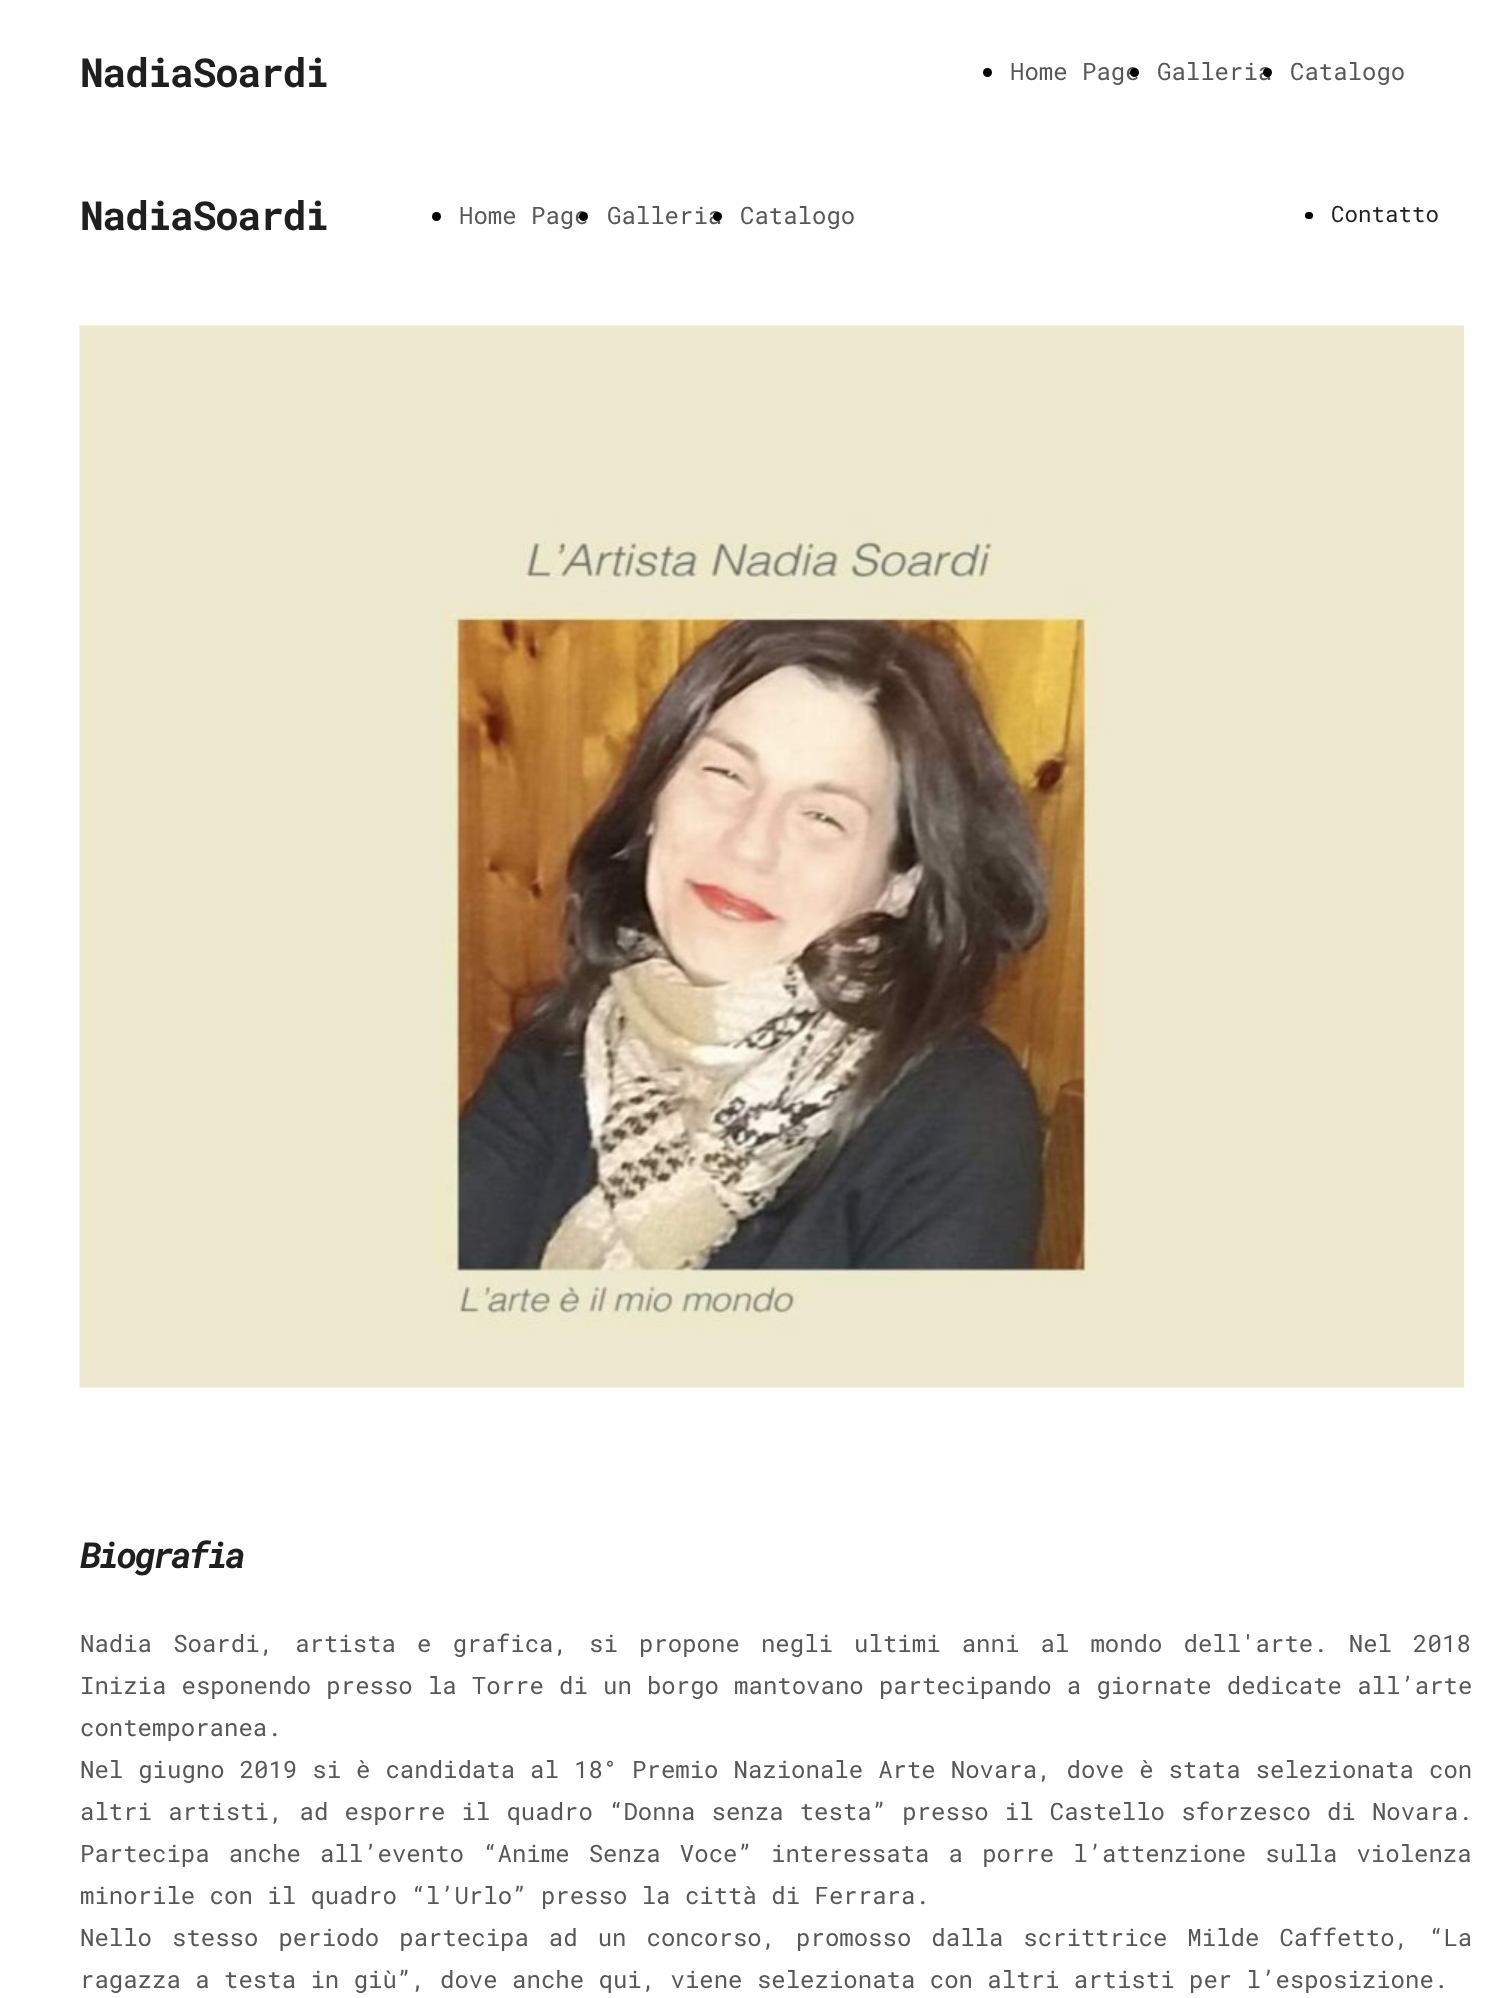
<svg xmlns="http://www.w3.org/2000/svg" xmlns:xlink="http://www.w3.org/1999/xlink" width="1502" height="1998" viewBox="0 0 1502 1998">
<style>
.cls-1{font:bold 40px Roboto Mono;letter-spacing:-1.5px;fill:#1f1f1f}
.cls-2{font:24px Roboto Mono;fill:#575757}
.cls-3{font:22.5px Roboto Mono;fill:#1f1f1f}
.cls-4{font:italic bold 36px Roboto Mono;letter-spacing:-3px;fill:#1f1f1f}
</style>
<rect width="100%" height="100%" fill="#ffffff"/>
<circle fill="#000000" cx="987.5" cy="72.5" r="4.5"/>
<circle fill="#000000" cx="436.5" cy="216.5" r="4.5"/>
<rect fill="#000000" x="1305" y="212" width="8" height="7" rx="3.5"/>
<image xlink:href="image0.png" x="79" y="325" width="1385" height="1063"/>
<text class="cls-1" x="80" y="87">NadiaSoardi</text>
<text class="cls-2" x="1010" y="80">Home Page</text>
<circle fill="#000000" cx="1134.5" cy="72.5" r="4.5"/>
<text class="cls-2" x="1157" y="80">Galleria</text>
<circle fill="#000000" cx="1267.5" cy="72.5" r="4.5"/>
<text class="cls-2" x="1290" y="80">Catalogo</text>
<text class="cls-1" x="80" y="230">NadiaSoardi</text>
<text class="cls-2" x="459" y="224">Home Page</text>
<circle fill="#000000" cx="583.5" cy="216.5" r="4.5"/>
<text class="cls-2" x="607" y="224">Galleria</text>
<circle fill="#000000" cx="717.5" cy="216.5" r="4.5"/>
<text class="cls-2" x="740" y="224">Catalogo</text>
<text class="cls-3" x="1331" y="222">Contatto</text>
<text class="cls-4" x="80" y="1568">Biografia</text>
<text class="cls-2"><tspan x="80" y="1652" word-spacing="6.75">Nadia Soardi, artista e grafica, si propone negli ultimi anni al mondo dell'arte. Nel 2018</tspan><tspan x="80" y="1694" word-spacing="0.75">Inizia esponendo presso la Torre di un borgo mantovano partecipando a giornate dedicate all’arte</tspan><tspan x="80" y="1736">contemporanea.</tspan><tspan x="80" y="1778" word-spacing="0.6">Nel giugno 2019 si è candidata al 18° Premio Nazionale Arte Novara, dove è stata selezionata con</tspan><tspan x="80" y="1820" word-spacing="1.75">altri artisti, ad esporre il quadro “Donna senza testa” presso il Castello sforzesco di Novara.</tspan><tspan x="80" y="1862" word-spacing="4.75">Partecipa anche all’evento “Anime Senza Voce” interessata a porre l’attenzione sulla violenza</tspan><tspan x="80" y="1904">minorile con il quadro “l’Urlo” presso la città di Ferrara.</tspan><tspan x="80" y="1946" word-spacing="5.6">Nello stesso periodo partecipa ad un concorso, promosso dalla scrittrice Milde Caffetto, “La</tspan><tspan x="80" y="1988">ragazza a testa in giù”, dove anche qui, viene selezionata con altri artisti per l’esposizione.</tspan></text>
</svg>
